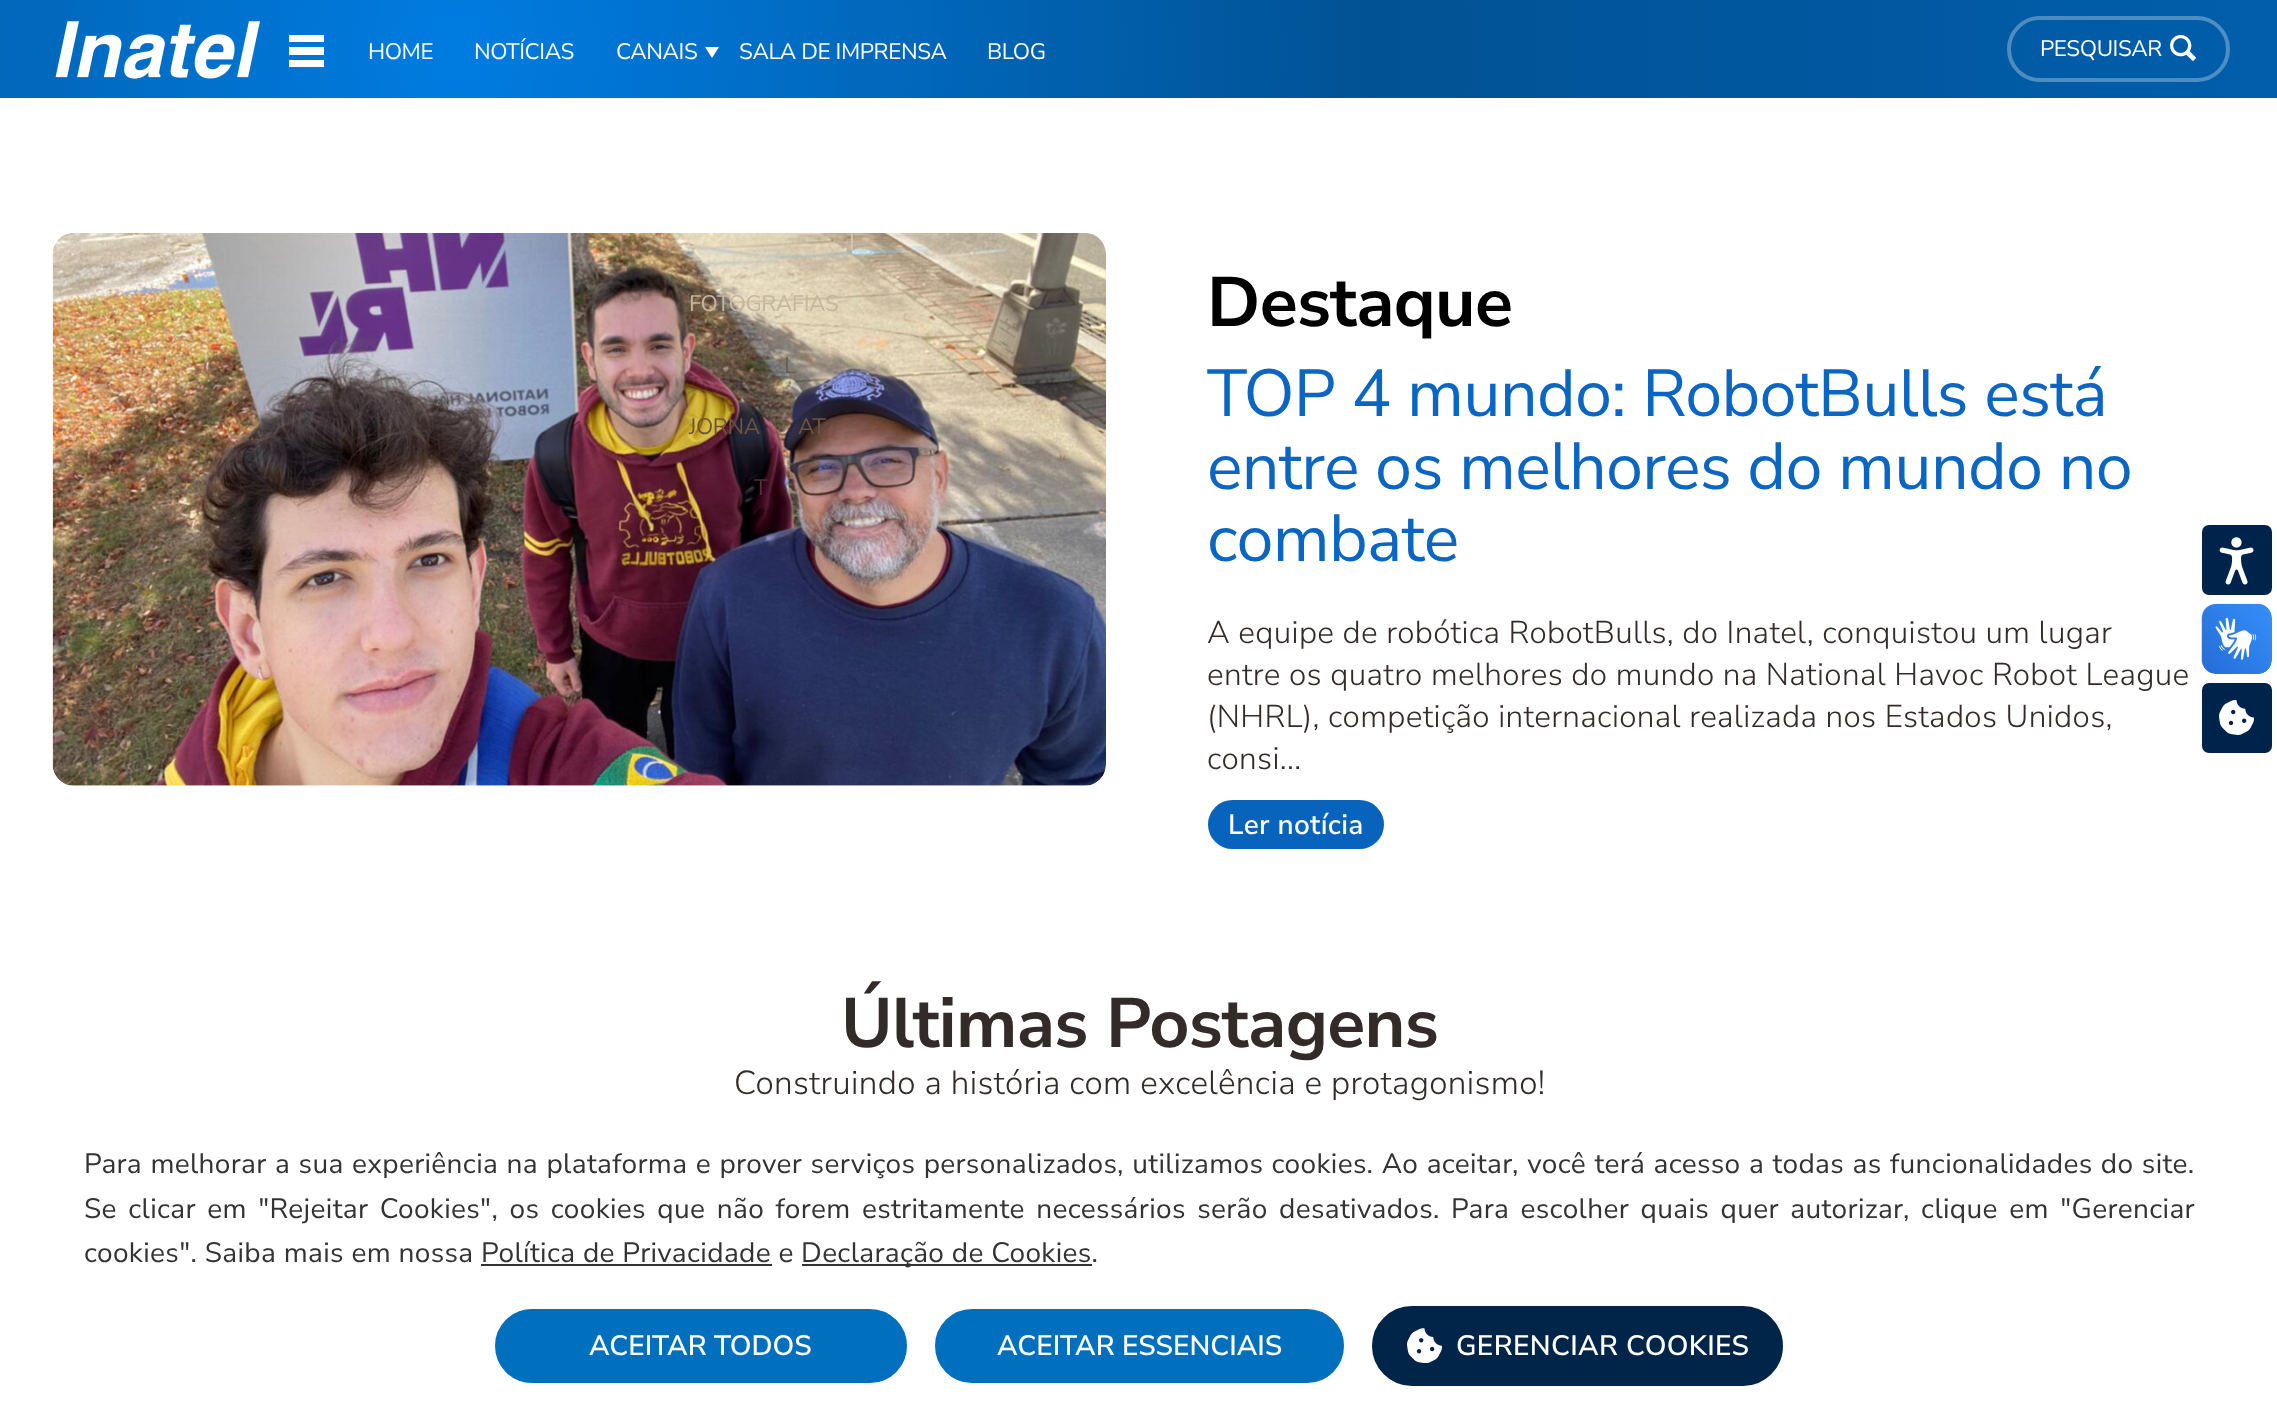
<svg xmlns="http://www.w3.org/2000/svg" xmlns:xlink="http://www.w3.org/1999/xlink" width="2277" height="1414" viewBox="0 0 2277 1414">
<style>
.cls-1{font:22.5px Nunito Sans;letter-spacing:-0.4px;fill:#ffffff}
.cls-2{font:22.5px Nunito Sans;letter-spacing:-0.4px;fill:#d5c8ae}
.cls-3{font:22.5px Nunito Sans;letter-spacing:-0.4px;fill:#c4b69d}
.cls-4{font:22.5px Nunito Sans;letter-spacing:-0.4px;fill:#6a5c4f}
.cls-5{font:22.5px Nunito Sans;letter-spacing:-0.4px;fill:#6b563b}
.cls-6{font:22.5px Nunito Sans;letter-spacing:-0.4px;fill:#572e3a}
.cls-7{font:bold 70px Nunito Sans;letter-spacing:-0.7px;fill:#000000}
.cls-8{font:66.5px Nunito Sans;letter-spacing:-0.7px;fill:#0a66c2}
.cls-9{font:300 31.5px Nunito Sans;letter-spacing:0.35px;fill:#332b29}
.cls-10{font:600 28px Nunito Sans;letter-spacing:0.35px;fill:#ffffff}
.cls-11{font:bold 70px Nunito Sans;letter-spacing:-0.7px;fill:#332b29}
.cls-12{font:300 33.25px Nunito Sans;letter-spacing:0.35px;fill:#332b29}
.cls-13{font:28px Nunito Sans;letter-spacing:0.35px;fill:#333333}
.cls-14{font:600 28px Nunito Sans;fill:#ffffff}
</style>
<defs>
<radialGradient id="g1" gradientUnits="userSpaceOnUse" cx="456" cy="49" r="1823"><stop offset="0" stop-color="#007ce1"/><stop offset="0.5" stop-color="#015294"/><stop offset="1" stop-color="#015eab"/></radialGradient>
</defs>
<rect width="100%" height="100%" fill="#ffffff"/>
<rect fill="url(#g1)" x="0" y="0" width="2277" height="98"/>
<image xlink:href="image0.png" x="55" y="21" width="205" height="58"/>
<rect fill="#ffffff" x="289" y="35" width="35" height="7"/>
<rect fill="#ffffff" x="289" y="47" width="35" height="8"/>
<rect fill="#ffffff" x="289" y="60" width="35" height="7"/>
<path fill="#ffffff" d="M705 47H719L712 58Z"/>
<rect fill="none" stroke="#ffffff" stroke-opacity="0.3" stroke-width="4" x="2009" y="18" width="219" height="62" rx="31"/>
<image xlink:href="image1.png" x="2170" y="35" width="26" height="26"/>
<image xlink:href="image2.png" x="52" y="233" width="1054" height="553"/>
<rect fill="#0863bd" x="1208" y="800" width="176" height="49" rx="24.5"/>
<image xlink:href="image3.png" x="2201" y="603" width="71" height="71"/>
<image xlink:href="image4.png" x="2202" y="604" width="70" height="70"/>
<rect fill="#00234b" x="2202" y="525" width="70" height="70" rx="7"/>
<image xlink:href="image5.png" x="2219" y="537" width="35" height="48"/>
<rect fill="#00234b" x="2202" y="683" width="70" height="70" rx="7"/>
<image xlink:href="image6.png" x="2219" y="700" width="35" height="35"/>
<rect fill="#333333" x="802" y="1264" width="290" height="2"/>
<rect fill="#333333" x="481" y="1264" width="291" height="2"/>
<rect fill="#006fbd" stroke="#006fbd" stroke-width="2" x="496" y="1310" width="410" height="72" rx="36"/>
<rect fill="#006fbd" stroke="#006fbd" stroke-width="2" x="936" y="1310" width="407" height="72" rx="36"/>
<rect fill="#002549" stroke="#002549" stroke-width="2" x="1373" y="1307" width="409" height="78" rx="39"/>
<image xlink:href="image7.png" x="1407" y="1328" width="35" height="35"/>
<text class="cls-1" x="368" y="59">HOME</text>
<text class="cls-1" x="474" y="59">NOTÍCIAS</text>
<text class="cls-1" x="616" y="59">CANAIS</text>
<text class="cls-2" x="849" y="250">I</text>
<text class="cls-3" x="689" y="311">FOTOGRAFIAS</text>
<text class="cls-4" x="784" y="373">L</text>
<text class="cls-5" x="689" y="434">JORNA</text>
<text class="cls-5" x="798" y="434">AT</text>
<text class="cls-6" x="754" y="495">T</text>
<text class="cls-1" x="2040" y="56">PESQUISAR</text>
<text class="cls-1" x="739" y="59">SALA DE IMPRENSA</text>
<text class="cls-1" x="987" y="59">BLOG</text>
<text class="cls-7" x="1207" y="326">Destaque</text>
<text class="cls-8"><tspan x="1207" y="416">TOP 4 mundo: RobotBulls está</tspan><tspan x="1207" y="489">entre os melhores do mundo no</tspan><tspan x="1207" y="561">combate</tspan></text>
<text class="cls-9"><tspan x="1207" y="643">A equipe de robótica RobotBulls, do Inatel, conquistou um lugar</tspan><tspan x="1207" y="685">entre os quatro melhores do mundo na National Havoc Robot League</tspan><tspan x="1207" y="727">(NHRL), competição internacional realizada nos Estados Unidos,</tspan><tspan x="1207" y="769">consi...</tspan></text>
<text class="cls-10" x="1228" y="834">Ler notícia</text>
<text class="cls-11" x="841" y="1047">Últimas Postagens</text>
<text class="cls-12" x="734" y="1094">Construindo a história com excelência e protagonismo!</text>
<text class="cls-13"><tspan x="84" y="1173" word-spacing="0.85">Para melhorar a sua experiência na plataforma e prover serviços personalizados, utilizamos cookies. Ao aceitar, você terá acesso a todas as funcionalidades do site.</tspan><tspan x="84" y="1218" word-spacing="3.9">Se clicar em "Rejeitar Cookies", os cookies que não forem estritamente necessários serão desativados. Para escolher quais quer autorizar, clique em "Gerenciar</tspan><tspan x="84" y="1262">cookies". Saiba mais em nossa Política de Privacidade e</tspan></text>
<text class="cls-13" x="801" y="1262">Declaração de Cookies.</text>
<text class="cls-14" x="589" y="1355">ACEITAR TODOS</text>
<text class="cls-14" x="997" y="1355">ACEITAR ESSENCIAIS</text>
<text class="cls-10" x="1456" y="1355">GERENCIAR COOKIES</text>
</svg>
